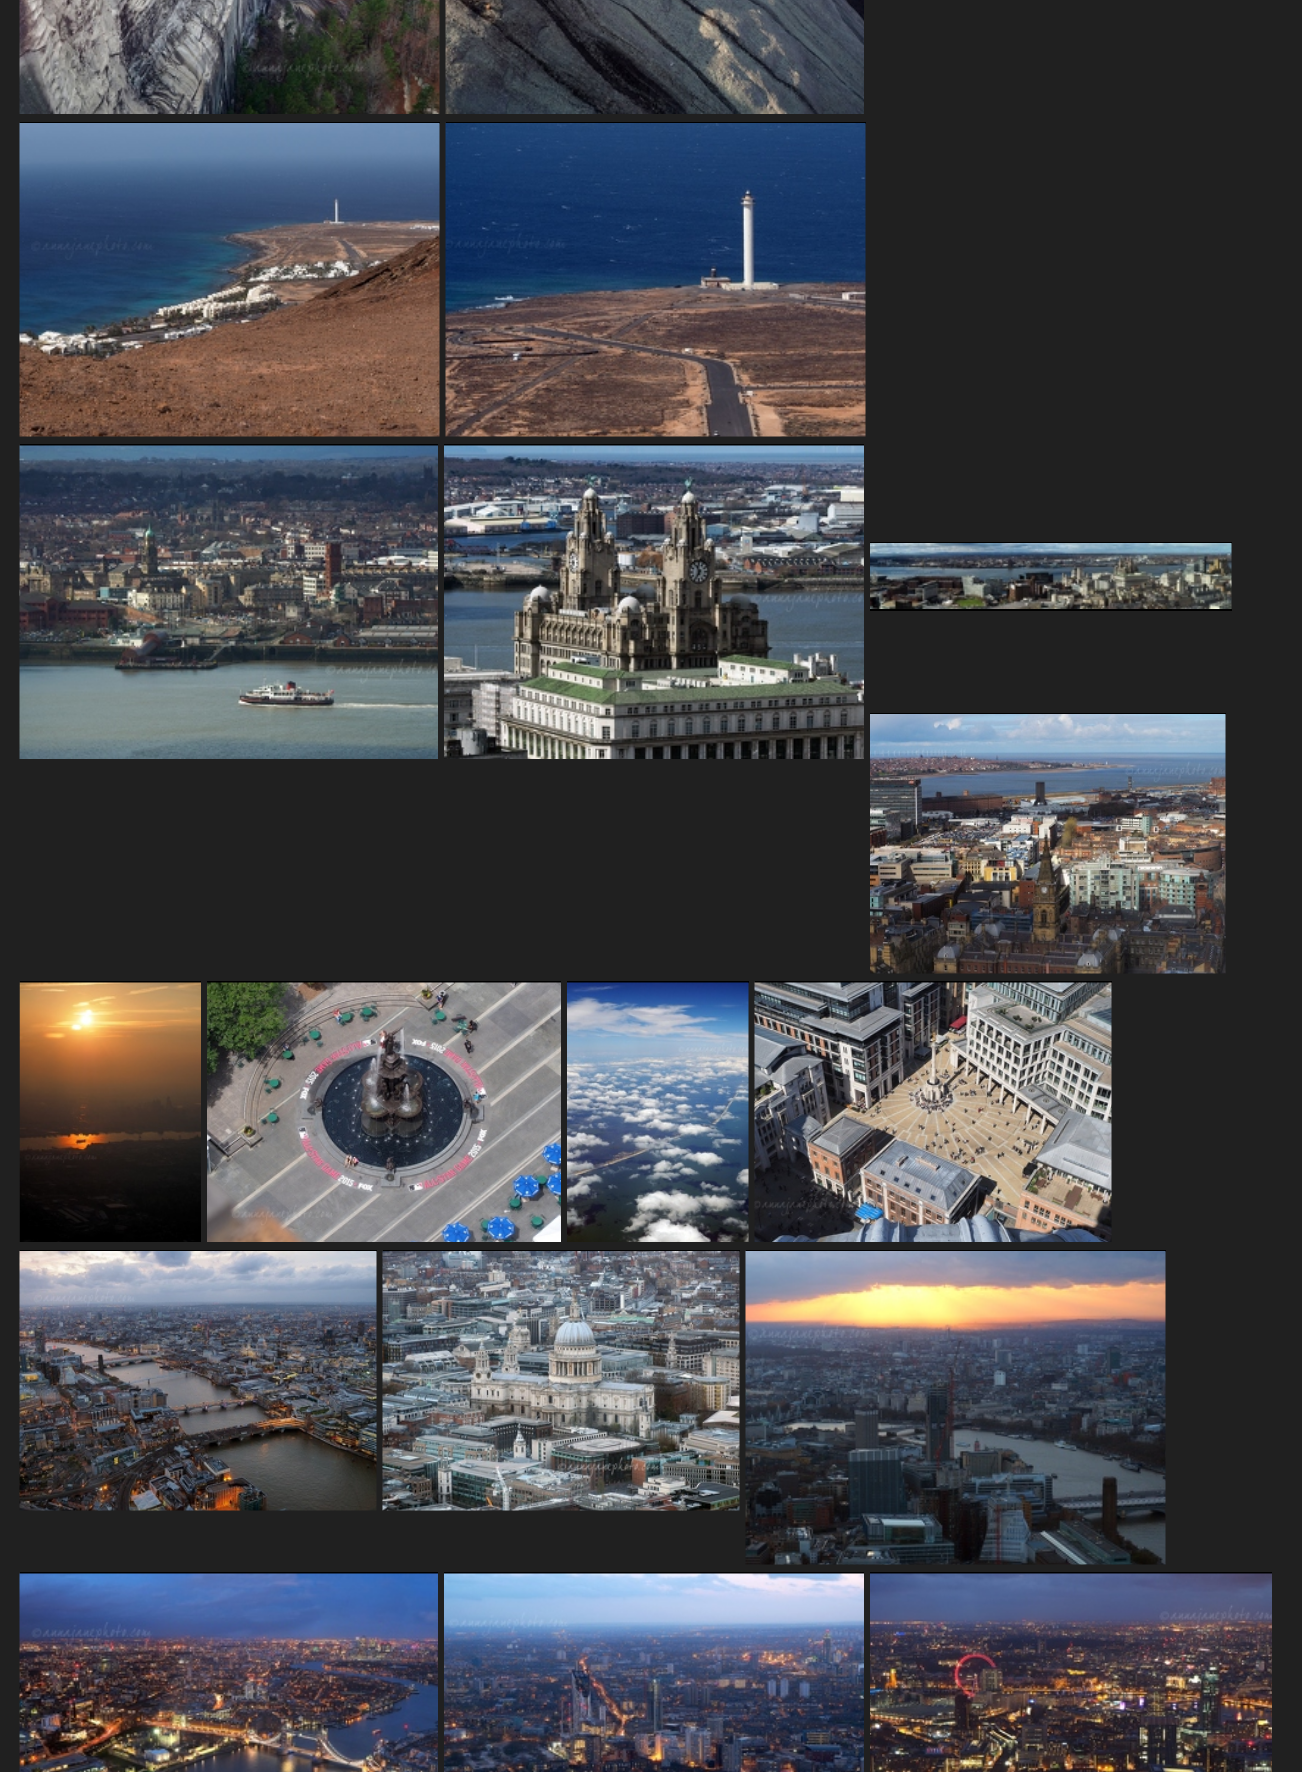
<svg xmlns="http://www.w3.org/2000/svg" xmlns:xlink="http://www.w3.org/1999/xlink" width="1302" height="1772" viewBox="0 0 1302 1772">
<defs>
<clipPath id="clip1"><rect x="20" y="122" width="420" height="315"/></clipPath>
<clipPath id="clip2"><rect x="446" y="122" width="420" height="315"/></clipPath>
<clipPath id="clip3"><rect x="20" y="444" width="418" height="315"/></clipPath>
<clipPath id="clip4"><rect x="444" y="444" width="420" height="315"/></clipPath>
<clipPath id="clip5"><rect x="870" y="444" width="362" height="261"/></clipPath>
<clipPath id="clip6"><rect x="870" y="713" width="356" height="261"/></clipPath>
<clipPath id="clip7"><rect x="20" y="981" width="181" height="261"/></clipPath>
<clipPath id="clip8"><rect x="207" y="981" width="354" height="261"/></clipPath>
<clipPath id="clip9"><rect x="567" y="981" width="182" height="261"/></clipPath>
<clipPath id="clip10"><rect x="755" y="981" width="357" height="261"/></clipPath>
<clipPath id="clip11"><rect x="20" y="1250" width="357" height="261"/></clipPath>
<clipPath id="clip12"><rect x="383" y="1250" width="357" height="261"/></clipPath>
<clipPath id="clip13"><rect x="746" y="1250" width="420" height="315"/></clipPath>
<clipPath id="clip14"><rect x="20" y="1572" width="418" height="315"/></clipPath>
<clipPath id="clip15"><rect x="444" y="1572" width="420" height="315"/></clipPath>
<clipPath id="clip16"><rect x="870" y="1572" width="402" height="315"/></clipPath>
</defs>
<rect width="100%" height="100%" fill="#202020"/>
<image xlink:href="image0.png" x="19" y="0" width="421" height="114"/>
<image xlink:href="image1.png" x="445" y="0" width="419" height="114"/>
<g clip-path="url(#clip1)">
<rect fill="none" stroke="#000000" stroke-width="2" x="10" y="123" width="442" height="316"/>
</g>
<image xlink:href="image2.png" x="19" y="123" width="421" height="314"/>
<g clip-path="url(#clip2)">
<rect fill="none" stroke="#000000" stroke-width="2" x="436" y="123" width="442" height="316"/>
</g>
<image xlink:href="image3.png" x="445" y="123" width="421" height="314"/>
<g clip-path="url(#clip3)">
<rect fill="none" stroke="#000000" stroke-width="2" x="10" y="445" width="442" height="316"/>
</g>
<image xlink:href="image4.png" x="19" y="445" width="419" height="314"/>
<g clip-path="url(#clip4)">
<rect fill="none" stroke="#000000" stroke-width="2" x="435" y="445" width="442" height="316"/>
</g>
<image xlink:href="image5.png" x="444" y="445" width="420" height="314"/>
<g clip-path="url(#clip5)">
<rect fill="none" stroke="#000000" stroke-width="2" x="828" y="543" width="451" height="67"/>
</g>
<image xlink:href="image6.png" x="870" y="543" width="362" height="66"/>
<g clip-path="url(#clip6)">
<rect fill="none" stroke="#000000" stroke-width="2" x="867" y="714" width="367" height="262"/>
</g>
<image xlink:href="image7.png" x="870" y="714" width="356" height="260"/>
<g clip-path="url(#clip7)">
<rect fill="none" stroke="#000000" stroke-width="2" x="19" y="982" width="187" height="262"/>
</g>
<image xlink:href="image8.png" x="19" y="982" width="182" height="260"/>
<g clip-path="url(#clip8)">
<rect fill="none" stroke="#000000" stroke-width="2" x="202" y="982" width="367" height="262"/>
</g>
<image xlink:href="image9.png" x="207" y="982" width="354" height="260"/>
<g clip-path="url(#clip9)">
<rect fill="none" stroke="#000000" stroke-width="2" x="567" y="982" width="187" height="262"/>
</g>
<image xlink:href="image10.png" x="567" y="982" width="182" height="260"/>
<g clip-path="url(#clip10)">
<rect fill="none" stroke="#000000" stroke-width="2" x="751" y="982" width="367" height="262"/>
</g>
<image xlink:href="image11.png" x="754" y="982" width="358" height="260"/>
<g clip-path="url(#clip11)">
<rect fill="none" stroke="#000000" stroke-width="2" x="16" y="1251" width="367" height="262"/>
</g>
<image xlink:href="image12.png" x="19" y="1251" width="358" height="260"/>
<g clip-path="url(#clip12)">
<rect fill="none" stroke="#000000" stroke-width="2" x="379" y="1251" width="367" height="262"/>
</g>
<image xlink:href="image13.png" x="382" y="1251" width="358" height="260"/>
<g clip-path="url(#clip13)">
<rect fill="none" stroke="#000000" stroke-width="2" x="736" y="1251" width="442" height="316"/>
</g>
<image xlink:href="image14.png" x="745" y="1251" width="421" height="314"/>
<g clip-path="url(#clip14)">
<rect fill="none" stroke="#000000" stroke-width="2" x="10" y="1573" width="442" height="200"/>
</g>
<image xlink:href="image15.png" x="19" y="1573" width="419" height="199"/>
<g clip-path="url(#clip15)">
<rect fill="none" stroke="#000000" stroke-width="2" x="435" y="1573" width="442" height="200"/>
</g>
<image xlink:href="image16.png" x="444" y="1573" width="420" height="199"/>
<g clip-path="url(#clip16)">
<rect fill="none" stroke="#000000" stroke-width="2" x="862" y="1573" width="421" height="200"/>
</g>
<image xlink:href="image17.png" x="870" y="1573" width="402" height="199"/>
</svg>
